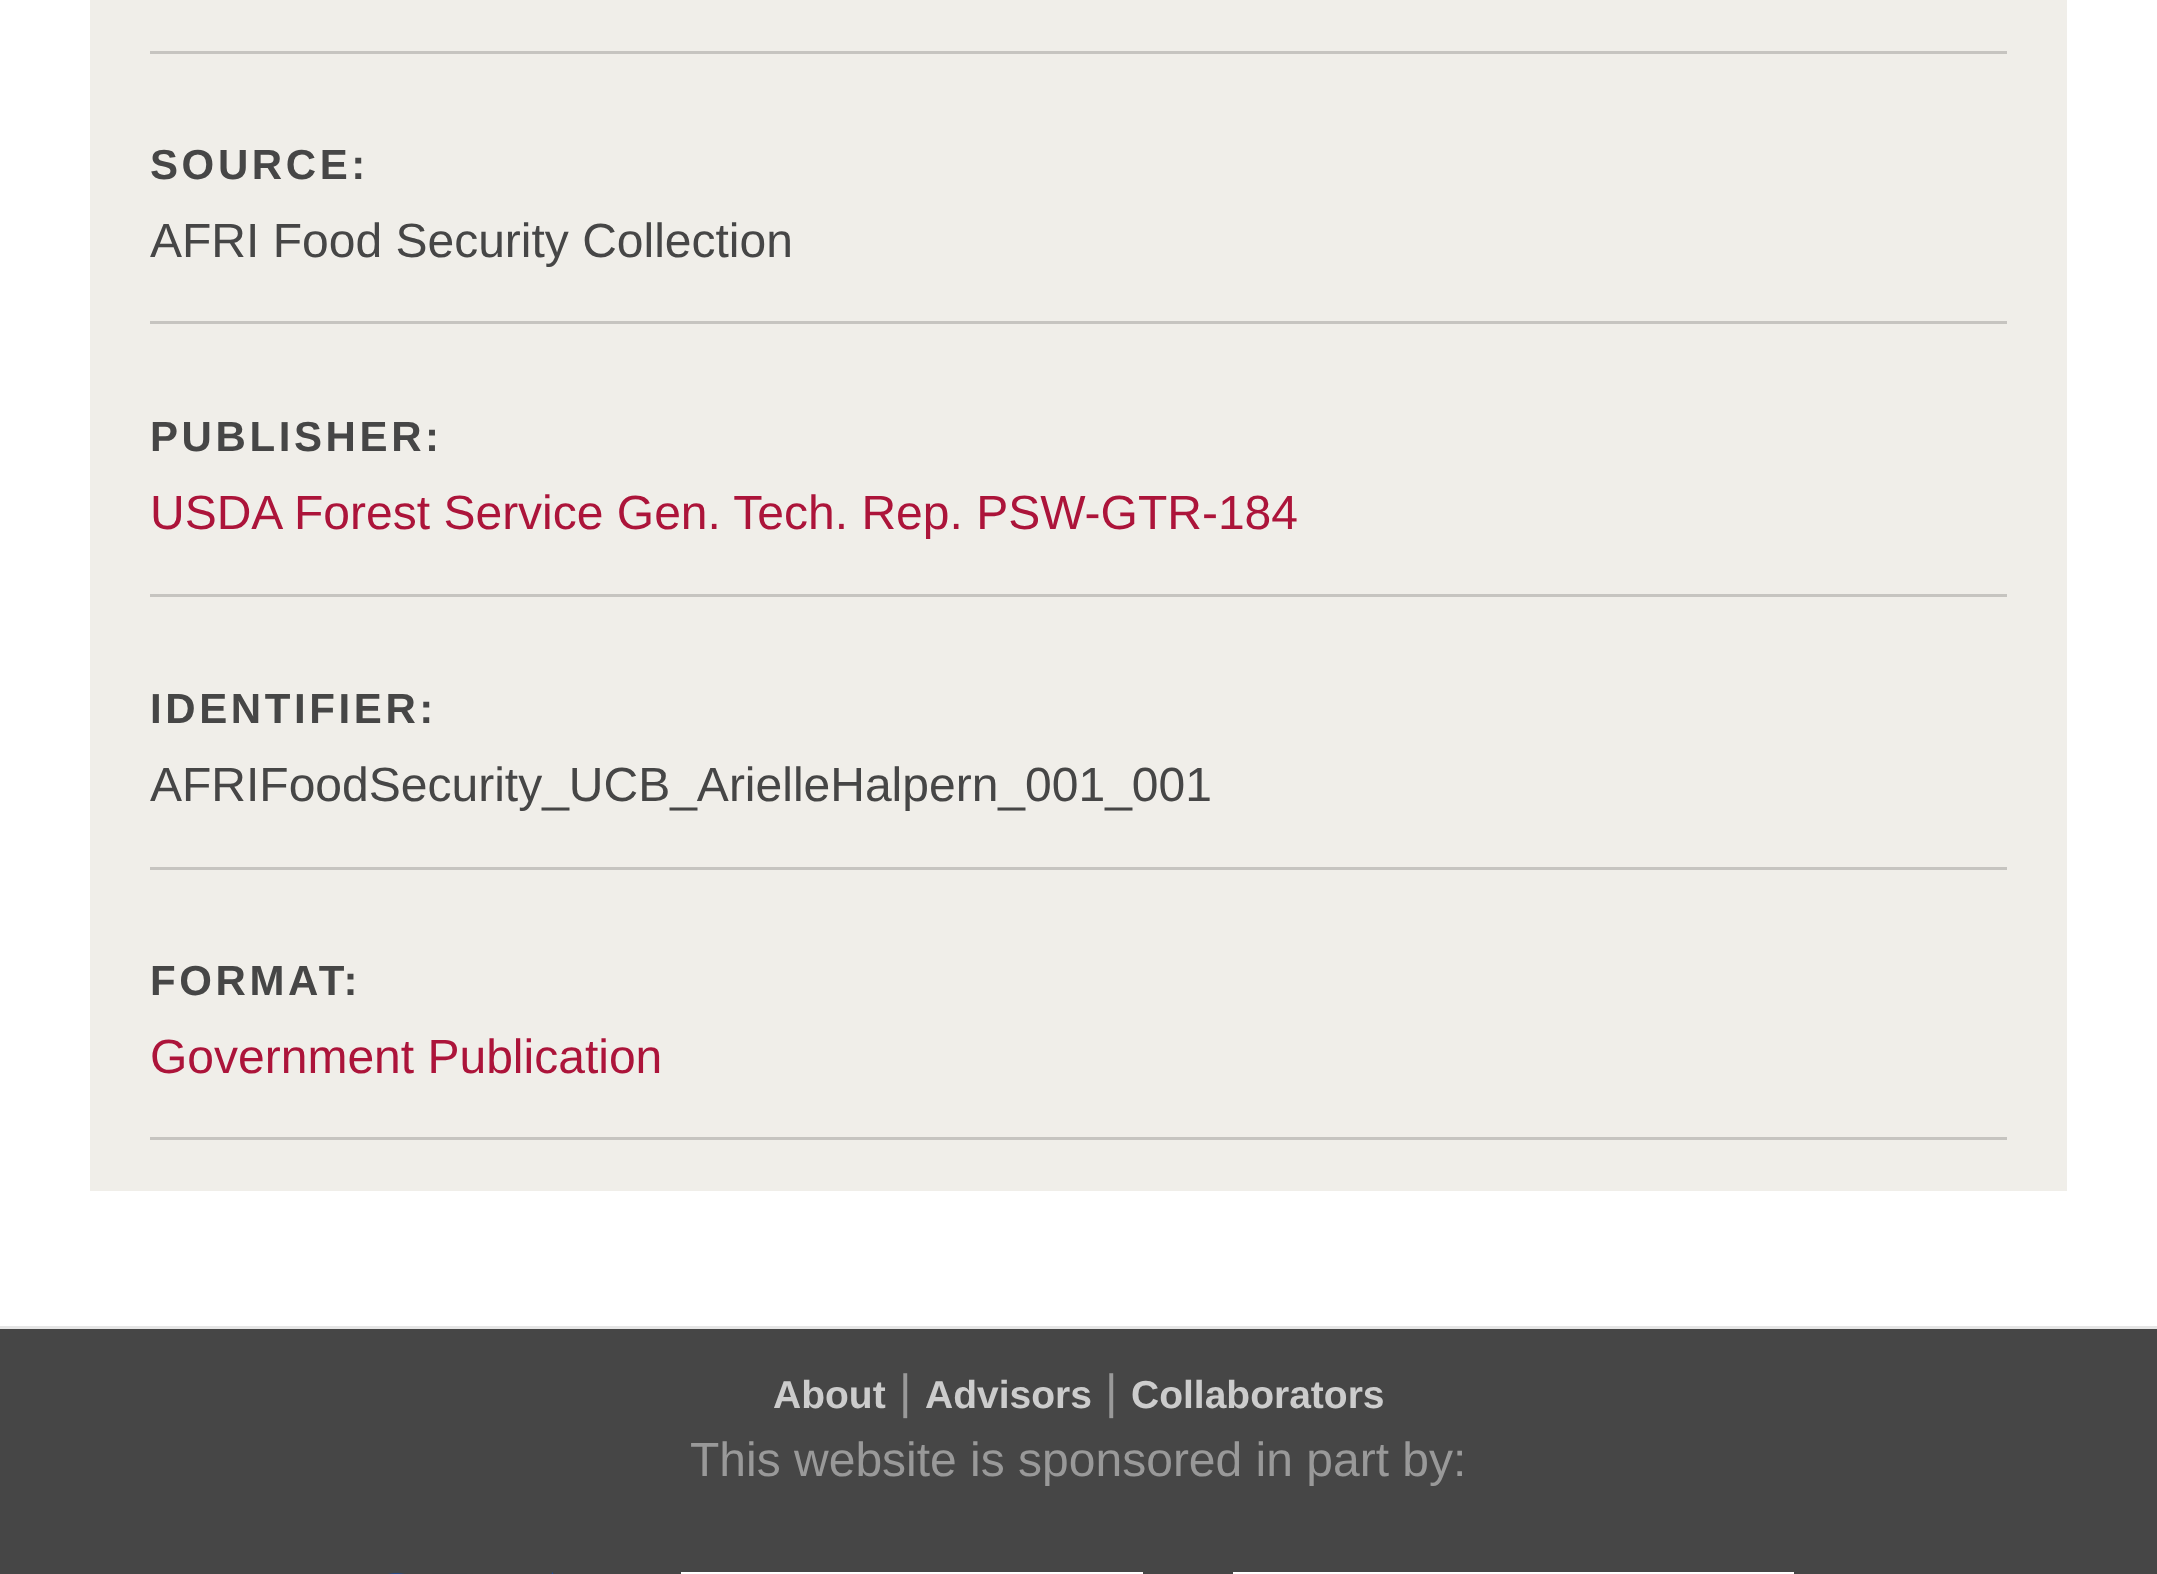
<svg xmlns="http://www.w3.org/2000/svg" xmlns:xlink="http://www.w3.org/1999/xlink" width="2157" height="1574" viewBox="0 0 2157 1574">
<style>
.cls-1{font:bold 42px Liberation Sans;letter-spacing:3.6px;fill:#464646}
.cls-2{font:48px Liberation Sans;fill:#464646}
.cls-3{font:48px Liberation Sans;fill:#ac143a}
.cls-4{font:bold 39px Liberation Sans;fill:#cccccc}
.cls-5{font:48px Liberation Sans;fill:#999999}
</style>
<rect width="100%" height="100%" fill="#ffffff"/>
<rect fill="#f0eee9" x="90" y="0" width="1977" height="1191"/>
<rect fill="#c6c4c0" x="150" y="51" width="1857" height="3"/>
<rect fill="#c6c4c0" x="150" y="321" width="1857" height="3"/>
<rect fill="#c6c4c0" x="150" y="594" width="1857" height="3"/>
<rect fill="#c6c4c0" x="150" y="867" width="1857" height="3"/>
<rect fill="#c6c4c0" x="150" y="1137" width="1857" height="3"/>
<rect fill="#464646" x="0" y="1329" width="2157" height="245"/>
<rect fill="#e5e5e5" x="0" y="1326" width="2157" height="3"/>
<image xlink:href="image0.png" x="388" y="1572" width="166" height="2"/>
<rect fill="#ffffff" x="681" y="1572" width="462" height="2"/>
<rect fill="#ffffff" x="1233" y="1572" width="561" height="2"/>
<text class="cls-1" x="150" y="179">SOURCE:</text>
<text class="cls-2" x="150" y="257">AFRI Food Security Collection</text>
<text class="cls-1" x="150" y="451">PUBLISHER:</text>
<text class="cls-3" x="150" y="529">USDA Forest Service Gen. Tech. Rep. PSW-GTR-184</text>
<text class="cls-1" x="150" y="723">IDENTIFIER:</text>
<text class="cls-2" x="150" y="801">AFRIFoodSecurity_UCB_ArielleHalpern_001_001</text>
<text class="cls-1" x="150" y="995">FORMAT:</text>
<text class="cls-3" x="150" y="1073">Government Publication</text>
<text class="cls-4" x="773" y="1408">About</text>
<text class="cls-5" x="899" y="1408">|</text>
<text class="cls-4" x="925" y="1408">Advisors</text>
<text class="cls-5" x="1105" y="1408">|</text>
<text class="cls-4" x="1131" y="1408">Collaborators</text>
<text class="cls-5" x="690" y="1476">This website is sponsored in part by:</text>
</svg>
